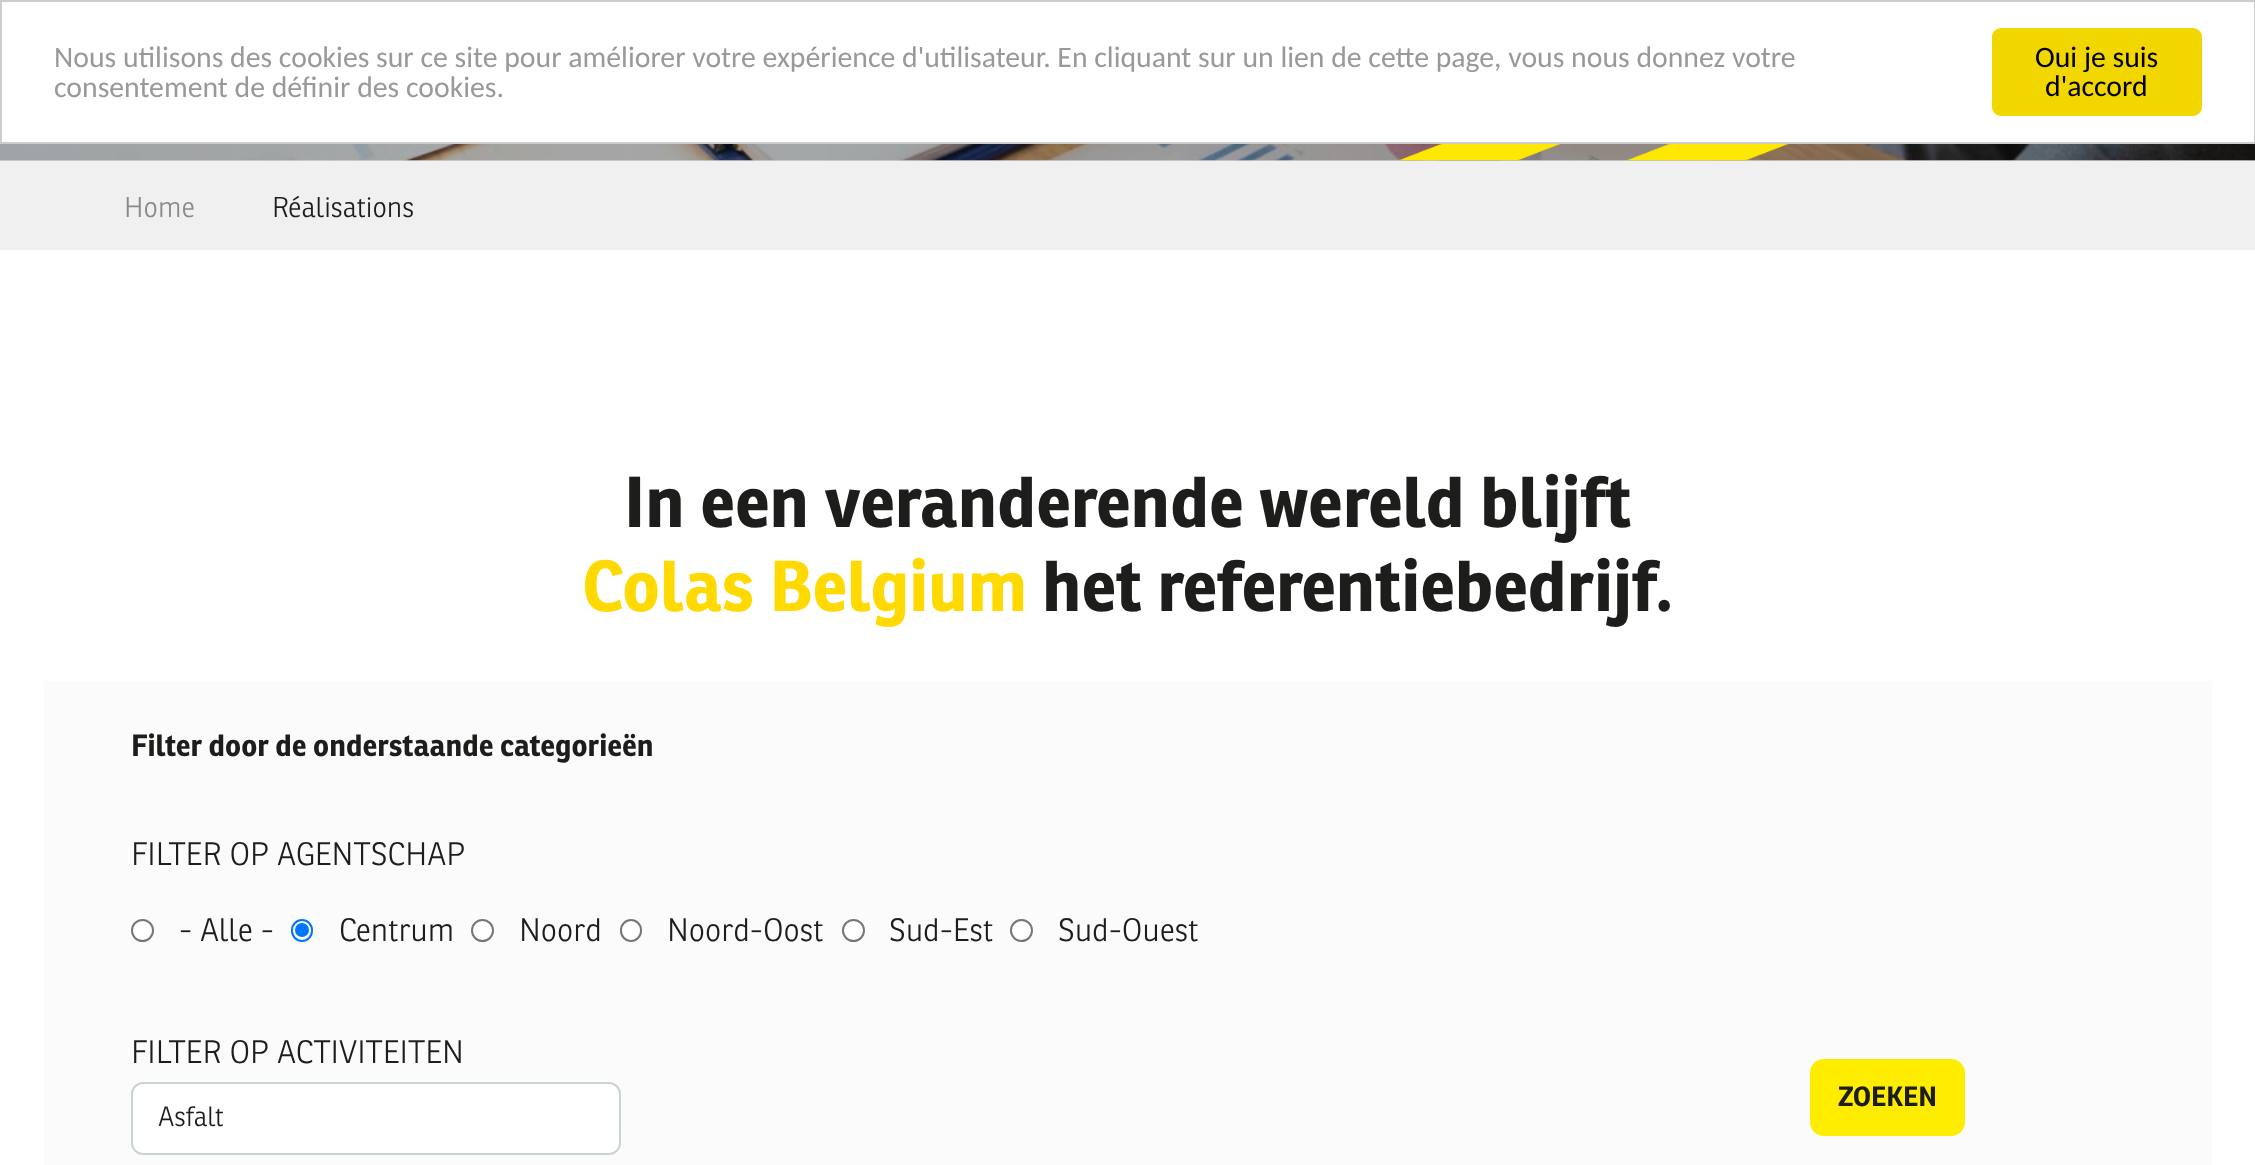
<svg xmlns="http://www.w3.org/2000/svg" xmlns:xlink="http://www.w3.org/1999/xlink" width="2255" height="1165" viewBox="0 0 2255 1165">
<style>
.cls-1{font:29.75px Carlito;fill:#999999}
.cls-2{font:29.75px Carlito;fill:#000000}
.cls-3{font:300 28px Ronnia;fill:#8a8a8a}
.cls-4{font:300 28px Ronnia;fill:#1d1d1b}
.cls-5{font:bold 70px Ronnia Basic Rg;fill:#1d1d1b}
.cls-6{font:bold 70px Ronnia Basic Rg;fill:#ffd900}
.cls-7{font:bold 29.75px Ronnia Basic Rg;fill:#1d1d1b}
.cls-8{font:300 31.5px Ronnia;fill:#1d1d1b}
.cls-9{font:300 27px Ronnia;fill:#1d1d1b}
.cls-10{font:bold 27px Ronnia Basic Rg;fill:#1d1d1b}
</style>
<rect width="100%" height="100%" fill="#ffffff"/>
<rect fill="none" stroke="#cccccc" stroke-width="2" x="1" y="1" width="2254" height="142"/>
<rect fill="#f1d600" x="1992" y="28" width="210" height="88" rx="9"/>
<rect fill="#d2d2d1" x="0" y="160" width="2255" height="1"/>
<image xlink:href="image0.png" x="0" y="144" width="2255" height="17"/>
<image xlink:href="image1.png" x="1398" y="144" width="391" height="17"/>
<rect fill="#f0f0f0" x="0" y="161" width="2255" height="89"/>
<rect fill="#fbfbfb" x="44" y="681" width="2168" height="484"/>
<circle fill="#ffffff" stroke="#767676" stroke-width="2" cx="142.5" cy="930.5" r="10.5"/>
<rect fill="#ffffff" stroke="#0075ff" stroke-width="2" x="292" y="920" width="20" height="21" rx="10"/>
<circle fill="#0075ff" cx="302" cy="930" r="7"/>
<circle fill="#ffffff" stroke="#767676" stroke-width="2" cx="482.5" cy="930.5" r="10.5"/>
<rect fill="#ffffff" stroke="#767676" stroke-width="2" x="621" y="920" width="20" height="21" rx="10"/>
<circle fill="#ffffff" stroke="#767676" stroke-width="2" cx="853.5" cy="930.5" r="10.5"/>
<circle fill="#ffffff" stroke="#767676" stroke-width="2" cx="1021.5" cy="930.5" r="10.5"/>
<rect fill="#ffffff" stroke="#c9d4d6" stroke-width="2" x="132" y="1083" width="488" height="71" rx="11"/>
<rect fill="#ffed00" x="1810" y="1059" width="155" height="77" rx="14"/>
<text class="cls-1"><tspan x="54" y="67">Nous utilisons des cookies sur ce site pour améliorer votre expérience d'utilisateur. En cliquant sur un lien de cette page, vous nous donnez votre</tspan><tspan x="54" y="97">consentement de définir des cookies.</tspan></text>
<text class="cls-2" x="2035" y="67">Oui je suis</text>
<text class="cls-2" x="2045" y="96">d'accord</text>
<text class="cls-3" x="124" y="217">Home</text>
<text class="cls-4" x="272" y="217">Réalisations</text>
<text class="cls-5" x="624" y="527">In een veranderende wereld blijft</text>
<text class="cls-6" x="582" y="611">Colas Belgium</text>
<text class="cls-5" x="1042" y="611">het referentiebedrijf.</text>
<text class="cls-7" x="131" y="756">Filter door de onderstaande categorieën</text>
<text class="cls-8" x="131" y="865">FILTER OP AGENTSCHAP</text>
<text class="cls-8" x="179" y="941">- Alle -</text>
<text class="cls-8" x="339" y="941">Centrum</text>
<text class="cls-8" x="519" y="941">Noord</text>
<text class="cls-8" x="667" y="941">Noord-Oost</text>
<text class="cls-8" x="889" y="941">Sud-Est</text>
<text class="cls-8" x="1058" y="941">Sud-Ouest</text>
<text class="cls-8" x="131" y="1063">FILTER OP ACTIVITEITEN</text>
<text class="cls-9" x="158" y="1126">Asfalt</text>
<text class="cls-10" x="1838" y="1106">ZOEKEN</text>
</svg>
